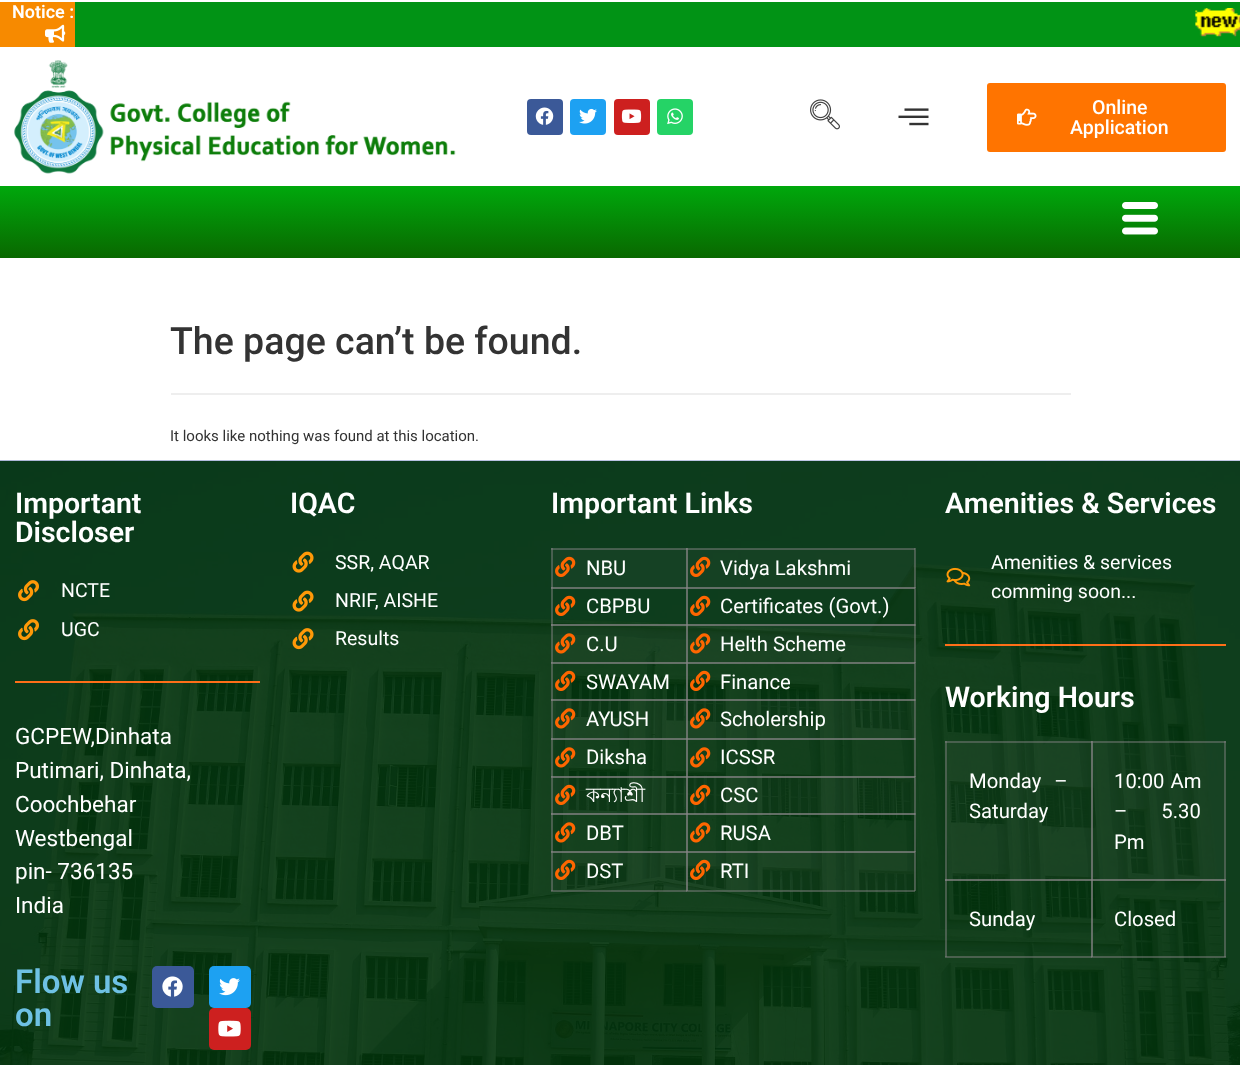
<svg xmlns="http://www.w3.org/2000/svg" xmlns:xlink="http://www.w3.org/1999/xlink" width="1240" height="1065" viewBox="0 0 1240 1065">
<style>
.cls-1{font:600 18px Roboto;fill:#ffffff}
.cls-2{font:500 19.5px Roboto;fill:#ffffff}
.cls-3{font:500 37.5px Roboto;fill:#333333}
.cls-4{font:15px Roboto;fill:#333333}
.cls-5{font:600 28.5px Roboto;fill:#ffffff}
.cls-6{font:19.5px Roboto;fill:#ffffff}
.cls-7{font:22.5px Roboto;fill:#ffffff}
.cls-8{font:600 33px Roboto;fill:#6ec1e4}
.cls-9{font:20.25px Roboto;fill:#ffffff}
.cls-10{font:20.25px Lohit Bengali;fill:#ffffff}
</style>
<defs>
<linearGradient id="g1" gradientUnits="userSpaceOnUse" x1="620" y1="186" x2="620" y2="258"><stop offset="0" stop-color="#00a80c"/><stop offset="1" stop-color="#096800"/></linearGradient>
</defs>
<rect width="100%" height="100%" fill="#ffffff"/>
<rect fill="#019315" x="75" y="2" width="1165" height="45"/>
<rect fill="#f78a00" x="0" y="2" width="75" height="45"/>
<image xlink:href="image0.png" x="45" y="24" width="21" height="19"/>
<image xlink:href="image1.png" x="1195" y="8" width="45" height="29"/>
<image xlink:href="image2.png" x="14" y="60" width="442" height="114"/>
<rect fill="#3b5998" x="527" y="99" width="36" height="36" rx="4"/>
<image xlink:href="image3.png" x="535" y="107" width="19" height="18"/>
<rect fill="#1da1f2" x="570" y="99" width="36" height="36" rx="4"/>
<image xlink:href="image4.png" x="579" y="108" width="18" height="16"/>
<rect fill="#cd201f" x="614" y="99" width="36" height="36" rx="4"/>
<image xlink:href="image5.png" x="621" y="109" width="21" height="14"/>
<rect fill="#25d366" x="657" y="99" width="36" height="36" rx="4"/>
<image xlink:href="image6.png" x="667" y="108" width="16" height="17"/>
<image xlink:href="image7.png" x="810" y="99" width="30" height="31"/>
<image xlink:href="image8.png" x="898" y="108" width="31" height="18"/>
<rect fill="#ff7400" x="987" y="83" width="239" height="69" rx="3"/>
<image xlink:href="image9.png" x="1017" y="108" width="20" height="18"/>
<rect fill="url(#g1)" x="0" y="186" width="1240" height="72"/>
<image xlink:href="image10.png" x="1122" y="202" width="36" height="33"/>
<rect fill="#eeeeee" x="171" y="393" width="900" height="2"/>
<image xlink:href="image11.png" x="0" y="460" width="1240" height="605"/>
<image xlink:href="image12.png" x="18" y="580" width="21" height="22"/>
<image xlink:href="image13.png" x="18" y="619" width="21" height="22"/>
<rect fill="#ff6f18" x="15" y="681" width="245" height="2"/>
<rect fill="#3b5998" x="152" y="966" width="42" height="42" rx="5"/>
<image xlink:href="image14.png" x="162" y="976" width="21" height="21"/>
<rect fill="#1da1f2" x="209" y="966" width="42" height="42" rx="5"/>
<image xlink:href="image15.png" x="219" y="978" width="21" height="18"/>
<rect fill="#cd201f" x="209" y="1008" width="42" height="42" rx="5"/>
<image xlink:href="image16.png" x="218" y="1020" width="23" height="17"/>
<image xlink:href="image17.png" x="292" y="551" width="22" height="22"/>
<image xlink:href="image18.png" x="292" y="590" width="22" height="22"/>
<image xlink:href="image19.png" x="292" y="628" width="22" height="22"/>
<rect fill="#154124" x="552" y="549" width="134" height="38"/>
<rect fill="#808080" fill-opacity="0.07" x="686" y="549" width="229" height="38"/>
<rect fill="#808080" fill-opacity="0.5" x="686" y="548" width="229" height="2"/>
<rect fill="#808080" fill-opacity="0.5" x="686" y="587" width="229" height="2"/>
<rect fill="#808080" fill-opacity="0.07" x="686" y="624" width="229" height="39"/>
<rect fill="#808080" fill-opacity="0.5" x="686" y="624" width="229" height="2"/>
<rect fill="#808080" fill-opacity="0.5" x="686" y="662" width="229" height="2"/>
<rect fill="#808080" fill-opacity="0.5" x="686" y="699" width="229" height="2"/>
<rect fill="#808080" fill-opacity="0.07" x="686" y="701" width="229" height="37"/>
<rect fill="#808080" fill-opacity="0.5" x="686" y="738" width="229" height="2"/>
<rect fill="#808080" fill-opacity="0.07" x="686" y="776" width="229" height="39"/>
<rect fill="#808080" fill-opacity="0.5" x="686" y="776" width="229" height="2"/>
<rect fill="#808080" fill-opacity="0.5" x="686" y="813" width="229" height="2"/>
<rect fill="#808080" fill-opacity="0.07" x="686" y="852" width="229" height="38"/>
<rect fill="#808080" fill-opacity="0.5" x="686" y="851" width="229" height="2"/>
<rect fill="#808080" fill-opacity="0.5" x="914" y="851" width="2" height="40"/>
<rect fill="#808080" fill-opacity="0.5" x="914" y="813" width="2" height="39"/>
<rect fill="#808080" fill-opacity="0.5" x="914" y="776" width="2" height="39"/>
<rect fill="#808080" fill-opacity="0.5" x="914" y="738" width="2" height="39"/>
<rect fill="#808080" fill-opacity="0.5" x="914" y="699" width="2" height="41"/>
<rect fill="#808080" fill-opacity="0.5" x="914" y="662" width="2" height="39"/>
<rect fill="#808080" fill-opacity="0.5" x="914" y="624" width="2" height="39"/>
<rect fill="#808080" fill-opacity="0.5" x="914" y="587" width="2" height="39"/>
<rect fill="#808080" fill-opacity="0.5" x="914" y="548" width="2" height="40"/>
<rect fill="#808080" fill-opacity="0.07" x="552" y="624" width="134" height="39"/>
<rect fill="#808080" fill-opacity="0.07" x="552" y="776" width="134" height="39"/>
<rect fill="#808080" fill-opacity="0.07" x="552" y="852" width="134" height="38"/>
<rect fill="#808080" fill-opacity="0.5" x="686" y="890" width="229" height="2"/>
<rect fill="#808080" fill-opacity="0.5" x="686" y="851" width="2" height="40"/>
<rect fill="#808080" fill-opacity="0.5" x="551" y="851" width="136" height="2"/>
<rect fill="#808080" fill-opacity="0.5" x="686" y="851" width="2" height="40"/>
<rect fill="#808080" fill-opacity="0.5" x="686" y="851" width="229" height="2"/>
<rect fill="#808080" fill-opacity="0.5" x="686" y="813" width="2" height="39"/>
<rect fill="#808080" fill-opacity="0.5" x="551" y="813" width="136" height="2"/>
<rect fill="#808080" fill-opacity="0.5" x="686" y="813" width="2" height="39"/>
<rect fill="#808080" fill-opacity="0.5" x="686" y="813" width="229" height="2"/>
<rect fill="#808080" fill-opacity="0.5" x="686" y="776" width="2" height="39"/>
<rect fill="#808080" fill-opacity="0.5" x="551" y="776" width="136" height="2"/>
<rect fill="#808080" fill-opacity="0.5" x="686" y="776" width="2" height="39"/>
<rect fill="#808080" fill-opacity="0.5" x="686" y="776" width="229" height="2"/>
<rect fill="#808080" fill-opacity="0.5" x="686" y="738" width="2" height="39"/>
<rect fill="#808080" fill-opacity="0.5" x="551" y="738" width="136" height="2"/>
<rect fill="#808080" fill-opacity="0.5" x="686" y="738" width="2" height="39"/>
<rect fill="#808080" fill-opacity="0.5" x="686" y="738" width="229" height="2"/>
<rect fill="#808080" fill-opacity="0.5" x="686" y="699" width="2" height="41"/>
<rect fill="#808080" fill-opacity="0.5" x="551" y="699" width="136" height="2"/>
<rect fill="#808080" fill-opacity="0.5" x="686" y="699" width="2" height="41"/>
<rect fill="#808080" fill-opacity="0.5" x="686" y="699" width="229" height="2"/>
<rect fill="#808080" fill-opacity="0.5" x="686" y="662" width="2" height="39"/>
<rect fill="#808080" fill-opacity="0.5" x="551" y="662" width="136" height="2"/>
<rect fill="#808080" fill-opacity="0.5" x="686" y="662" width="2" height="39"/>
<rect fill="#808080" fill-opacity="0.5" x="686" y="662" width="229" height="2"/>
<rect fill="#808080" fill-opacity="0.5" x="686" y="624" width="2" height="39"/>
<rect fill="#808080" fill-opacity="0.5" x="551" y="624" width="136" height="2"/>
<rect fill="#808080" fill-opacity="0.5" x="686" y="624" width="2" height="39"/>
<rect fill="#808080" fill-opacity="0.5" x="686" y="624" width="229" height="2"/>
<rect fill="#808080" fill-opacity="0.5" x="686" y="587" width="2" height="39"/>
<rect fill="#808080" fill-opacity="0.5" x="551" y="587" width="136" height="2"/>
<rect fill="#808080" fill-opacity="0.5" x="686" y="587" width="2" height="39"/>
<rect fill="#808080" fill-opacity="0.5" x="686" y="587" width="229" height="2"/>
<rect fill="#808080" fill-opacity="0.5" x="686" y="548" width="2" height="40"/>
<rect fill="#808080" fill-opacity="0.5" x="551" y="548" width="136" height="2"/>
<rect fill="#808080" fill-opacity="0.5" x="686" y="548" width="2" height="40"/>
<rect fill="#808080" fill-opacity="0.07" x="552" y="701" width="134" height="37"/>
<rect fill="#808080" fill-opacity="0.5" x="551" y="890" width="136" height="2"/>
<rect fill="#808080" fill-opacity="0.5" x="551" y="851" width="2" height="40"/>
<rect fill="#808080" fill-opacity="0.5" x="551" y="851" width="136" height="2"/>
<rect fill="#808080" fill-opacity="0.5" x="551" y="813" width="2" height="39"/>
<rect fill="#808080" fill-opacity="0.5" x="551" y="813" width="136" height="2"/>
<rect fill="#808080" fill-opacity="0.5" x="551" y="776" width="2" height="39"/>
<rect fill="#808080" fill-opacity="0.5" x="551" y="776" width="136" height="2"/>
<rect fill="#808080" fill-opacity="0.5" x="551" y="738" width="2" height="39"/>
<rect fill="#808080" fill-opacity="0.5" x="551" y="738" width="136" height="2"/>
<rect fill="#808080" fill-opacity="0.5" x="551" y="699" width="2" height="41"/>
<rect fill="#808080" fill-opacity="0.5" x="551" y="699" width="136" height="2"/>
<rect fill="#808080" fill-opacity="0.5" x="551" y="662" width="2" height="39"/>
<rect fill="#808080" fill-opacity="0.5" x="551" y="662" width="136" height="2"/>
<rect fill="#808080" fill-opacity="0.5" x="551" y="624" width="2" height="39"/>
<rect fill="#808080" fill-opacity="0.5" x="551" y="624" width="136" height="2"/>
<rect fill="#808080" fill-opacity="0.5" x="551" y="587" width="2" height="39"/>
<rect fill="#808080" fill-opacity="0.5" x="551" y="587" width="136" height="2"/>
<rect fill="#808080" fill-opacity="0.5" x="551" y="548" width="2" height="40"/>
<image xlink:href="image20.png" x="555" y="556" width="21" height="21"/>
<image xlink:href="image21.png" x="690" y="556" width="21" height="21"/>
<image xlink:href="image22.png" x="555" y="595" width="21" height="21"/>
<image xlink:href="image23.png" x="690" y="595" width="21" height="21"/>
<image xlink:href="image24.png" x="555" y="633" width="21" height="21"/>
<image xlink:href="image25.png" x="690" y="633" width="21" height="21"/>
<image xlink:href="image26.png" x="555" y="670" width="21" height="21"/>
<image xlink:href="image27.png" x="690" y="670" width="21" height="21"/>
<image xlink:href="image28.png" x="555" y="708" width="21" height="21"/>
<image xlink:href="image29.png" x="690" y="708" width="21" height="21"/>
<image xlink:href="image30.png" x="555" y="747" width="21" height="21"/>
<image xlink:href="image31.png" x="690" y="747" width="21" height="21"/>
<image xlink:href="image32.png" x="555" y="784" width="21" height="21"/>
<image xlink:href="image33.png" x="690" y="784" width="21" height="21"/>
<image xlink:href="image34.png" x="555" y="822" width="21" height="21"/>
<image xlink:href="image35.png" x="690" y="822" width="21" height="21"/>
<image xlink:href="image36.png" x="555" y="859" width="21" height="21"/>
<image xlink:href="image37.png" x="690" y="859" width="21" height="21"/>
<image xlink:href="image38.png" x="946" y="567" width="25" height="20"/>
<rect fill="#ff6f18" x="945" y="644" width="281" height="2"/>
<rect fill="#808080" fill-opacity="0.07" x="947" y="743" width="144" height="138"/>
<rect fill="#808080" fill-opacity="0.5" x="1091" y="741" width="135" height="2"/>
<rect fill="#808080" fill-opacity="0.07" x="1091" y="743" width="133" height="138"/>
<rect fill="#808080" fill-opacity="0.5" x="1091" y="879" width="135" height="2"/>
<rect fill="#808080" fill-opacity="0.5" x="1224" y="879" width="2" height="78"/>
<rect fill="#808080" fill-opacity="0.5" x="1224" y="741" width="2" height="140"/>
<rect fill="#808080" fill-opacity="0.5" x="1091" y="956" width="135" height="2"/>
<rect fill="#808080" fill-opacity="0.5" x="1091" y="879" width="2" height="78"/>
<rect fill="#808080" fill-opacity="0.5" x="945" y="879" width="147" height="2"/>
<rect fill="#808080" fill-opacity="0.5" x="1091" y="879" width="2" height="78"/>
<rect fill="#808080" fill-opacity="0.5" x="1091" y="879" width="135" height="2"/>
<rect fill="#808080" fill-opacity="0.5" x="1091" y="741" width="2" height="140"/>
<rect fill="#808080" fill-opacity="0.5" x="945" y="741" width="147" height="2"/>
<rect fill="#808080" fill-opacity="0.5" x="1091" y="741" width="2" height="140"/>
<rect fill="#808080" fill-opacity="0.5" x="945" y="956" width="147" height="2"/>
<rect fill="#808080" fill-opacity="0.5" x="945" y="879" width="2" height="78"/>
<rect fill="#808080" fill-opacity="0.5" x="945" y="879" width="147" height="2"/>
<rect fill="#808080" fill-opacity="0.5" x="945" y="741" width="2" height="140"/>
<text class="cls-1" x="12" y="18">Notice :</text>
<text class="cls-2" x="1092" y="114">Online</text>
<text class="cls-2" x="1070" y="134">Application</text>
<text class="cls-3" x="170" y="354">The page can’t be found.</text>
<text class="cls-4" x="170" y="441">It looks like nothing was found at this location.</text>
<text class="cls-5"><tspan x="15" y="513">Important</tspan><tspan x="15" y="542">Discloser</tspan></text>
<text class="cls-6" x="61" y="597">NCTE</text>
<text class="cls-6" x="61" y="636">UGC</text>
<text class="cls-7"><tspan x="15" y="744">GCPEW,Dinhata</tspan><tspan x="15" y="778">Putimari, Dinhata,</tspan><tspan x="15" y="812">Coochbehar</tspan><tspan x="15" y="846">Westbengal</tspan><tspan x="15" y="879">pin- 736135</tspan><tspan x="15" y="913">India</tspan></text>
<text class="cls-8"><tspan x="15" y="993">Flow us</tspan><tspan x="15" y="1026">on</tspan></text>
<text class="cls-5" x="290" y="513">IQAC</text>
<text class="cls-6"><tspan x="335" y="569">SSR, AQAR</tspan><tspan x="335" y="607">NRIF, AISHE</tspan><tspan x="335" y="645">Results</tspan></text>
<text class="cls-5" x="551" y="513">Important Links</text>
<text class="cls-9" x="586" y="575">NBU</text>
<text class="cls-9" x="720" y="575">Vidya Lakshmi</text>
<text class="cls-9" x="586" y="613">CBPBU</text>
<text class="cls-9" x="720" y="613">Certificates (Govt.)</text>
<text class="cls-9" x="586" y="651">C.U</text>
<text class="cls-9" x="720" y="651">Helth Scheme</text>
<text class="cls-9" x="586" y="689">SWAYAM</text>
<text class="cls-9" x="720" y="689">Finance</text>
<text class="cls-9" x="586" y="726">AYUSH</text>
<text class="cls-9" x="720" y="726">Scholership</text>
<text class="cls-9" x="586" y="764">Diksha</text>
<text class="cls-9" x="720" y="764">ICSSR</text>
<text class="cls-10" x="586" y="802">কন্যাশ্রী</text>
<text class="cls-9" x="720" y="802">CSC</text>
<text class="cls-9" x="586" y="840">DBT</text>
<text class="cls-9" x="720" y="840">RUSA</text>
<text class="cls-9" x="586" y="878">DST</text>
<text class="cls-9" x="720" y="878">RTI</text>
<text class="cls-5" x="945" y="513">Amenities &amp; Services</text>
<text class="cls-6"><tspan x="991" y="569">Amenities &amp; services</tspan><tspan x="991" y="598">comming soon...</tspan></text>
<text class="cls-5" x="945" y="707">Working Hours</text>
<text class="cls-9"><tspan x="969" y="788" word-spacing="8">Monday –</tspan><tspan x="969" y="818">Saturday</tspan></text>
<text class="cls-9"><tspan x="1114" y="788" word-spacing="1">10:00 Am</tspan><tspan x="1114" y="818" word-spacing="29">– 5.30</tspan><tspan x="1114" y="849">Pm</tspan></text>
<text class="cls-9" x="969" y="926">Sunday</text>
<text class="cls-9" x="1114" y="926">Closed</text>
</svg>
